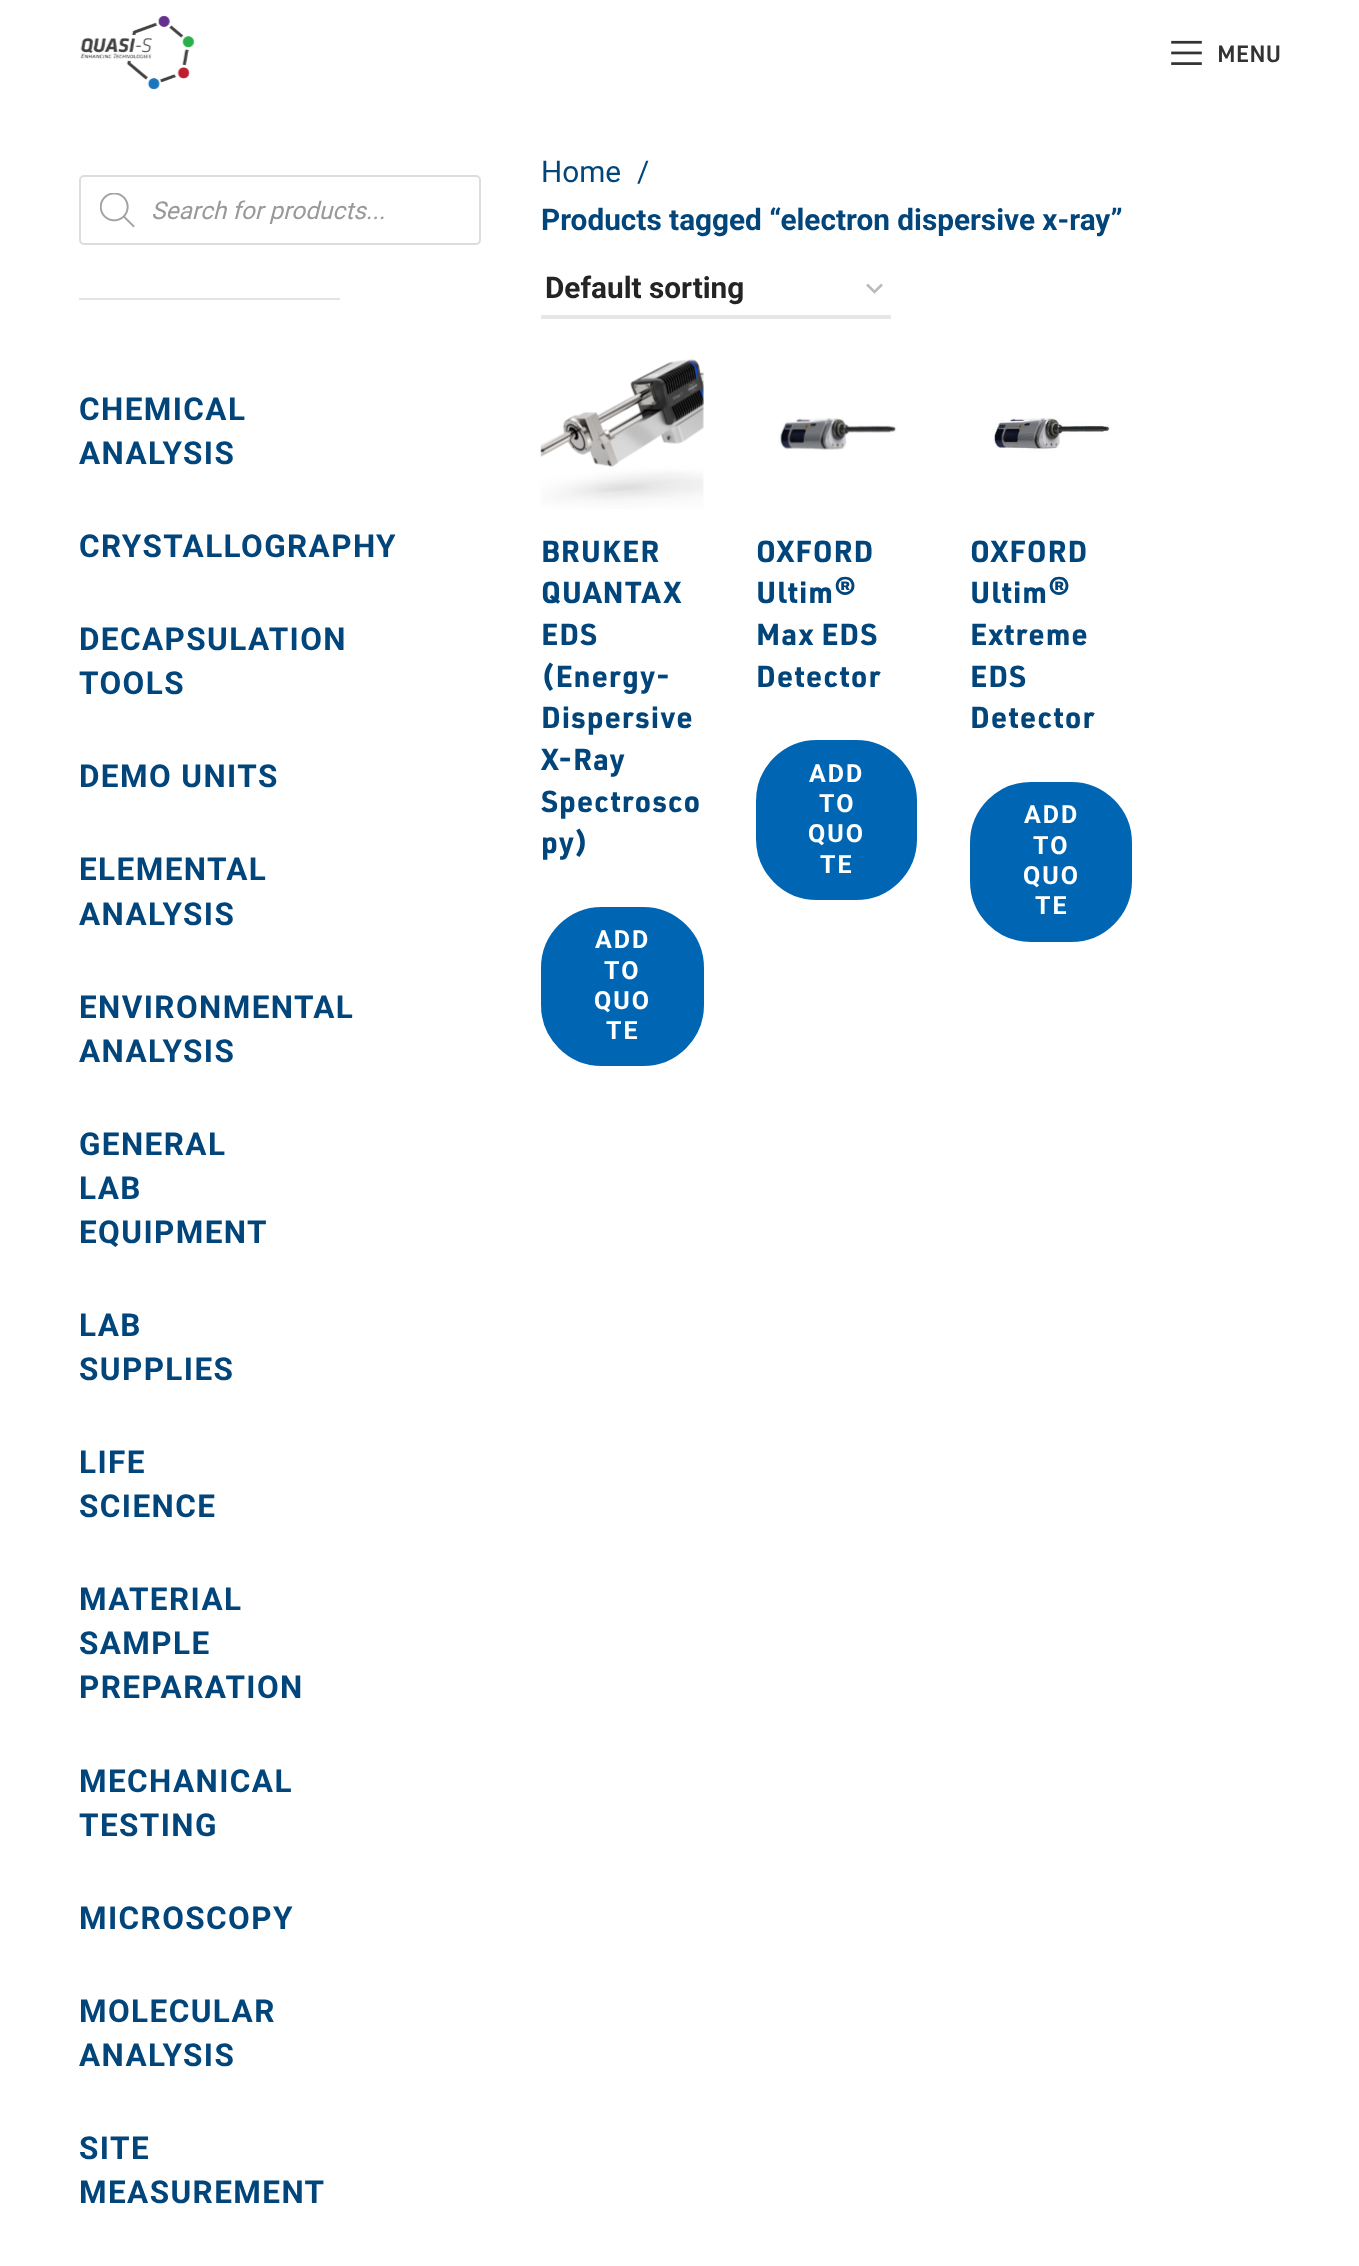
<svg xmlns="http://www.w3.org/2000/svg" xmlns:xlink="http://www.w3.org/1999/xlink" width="1359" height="2266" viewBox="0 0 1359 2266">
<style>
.cls-1{font:600 23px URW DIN;fill:#333333}
.cls-2{font:italic 24.5px Roboto;fill:#999999}
.cls-3{font:bold 31.5px Roboto;letter-spacing:1.4px;fill:#01457a}
.cls-4{font:29.75px Roboto;fill:#01457a}
.cls-5{font:bold 29.75px Roboto;fill:#01457a}
.cls-6{font:bold 29.75px Roboto;fill:#242424}
.cls-7{font:bold 29.75px URW DIN;letter-spacing:0.9px;fill:#01457a}
.cls-8{font:bold 25px Roboto;letter-spacing:2px;fill:#ffffff}
</style>
<rect width="100%" height="100%" fill="#ffffff"/>
<image xlink:href="image0.png" x="80" y="15" width="115" height="75"/>
<image xlink:href="image1.png" x="1171" y="40" width="31" height="25"/>
<rect fill="#e4e4e4" x="79" y="298" width="261" height="2"/>
<rect fill="none" stroke="#dddddd" stroke-width="2" x="80" y="176" width="400" height="68" rx="4"/>
<image xlink:href="image2.png" x="100" y="193" width="35" height="35"/>
<path fill="none" stroke="#bbbbbb" stroke-width="2.5" d="M867 284.5L874.5 292L882 284.5"/>
<rect fill="#e6e6e6" x="541" y="315" width="350" height="4"/>
<image xlink:href="image3.png" x="540" y="359" width="164" height="150"/>
<rect fill="#0066b4" stroke="#0066b4" stroke-width="2" x="542" y="908" width="161" height="157" rx="60"/>
<image xlink:href="image4.png" x="778" y="418" width="119" height="32"/>
<rect fill="#0066b4" stroke="#0066b4" stroke-width="2" x="757" y="741" width="159" height="158" rx="60"/>
<image xlink:href="image5.png" x="991" y="418" width="121" height="34"/>
<rect fill="#0066b4" stroke="#0066b4" stroke-width="2" x="971" y="783" width="160" height="158" rx="60"/>
<text class="cls-1" x="1217" y="62">MENU</text>
<text class="cls-2" x="151" y="219">Search for products...</text>
<text class="cls-3"><tspan x="79" y="420">CHEMICAL</tspan><tspan x="79" y="464">ANALYSIS</tspan></text>
<text class="cls-3" x="79" y="557">CRYSTALLOGRAPHY</text>
<text class="cls-3"><tspan x="79" y="650">DECAPSULATION</tspan><tspan x="79" y="694">TOOLS</tspan></text>
<text class="cls-3" x="79" y="787">DEMO UNITS</text>
<text class="cls-3"><tspan x="79" y="880">ELEMENTAL</tspan><tspan x="79" y="925">ANALYSIS</tspan></text>
<text class="cls-3"><tspan x="79" y="1018">ENVIRONMENTAL</tspan><tspan x="79" y="1062">ANALYSIS</tspan></text>
<text class="cls-3"><tspan x="79" y="1155">GENERAL</tspan><tspan x="79" y="1199">LAB</tspan><tspan x="79" y="1243">EQUIPMENT</tspan></text>
<text class="cls-3"><tspan x="79" y="1336">LAB</tspan><tspan x="79" y="1380">SUPPLIES</tspan></text>
<text class="cls-3"><tspan x="79" y="1473">LIFE</tspan><tspan x="79" y="1517">SCIENCE</tspan></text>
<text class="cls-3"><tspan x="79" y="1610">MATERIAL</tspan><tspan x="79" y="1654">SAMPLE</tspan><tspan x="79" y="1698">PREPARATION</tspan></text>
<text class="cls-3"><tspan x="79" y="1792">MECHANICAL</tspan><tspan x="79" y="1836">TESTING</tspan></text>
<text class="cls-3" x="79" y="1929">MICROSCOPY</text>
<text class="cls-3"><tspan x="79" y="2022">MOLECULAR</tspan><tspan x="79" y="2066">ANALYSIS</tspan></text>
<text class="cls-3"><tspan x="79" y="2159">SITE</tspan><tspan x="79" y="2203">MEASUREMENT</tspan></text>
<text class="cls-4" x="541" y="182">Home</text>
<text class="cls-4" x="637" y="182">/</text>
<text class="cls-5" x="541" y="230">Products tagged “electron dispersive x-ray”</text>
<text class="cls-6" x="545" y="298">Default sorting</text>
<text class="cls-7"><tspan x="541" y="562">BRUKER</tspan><tspan x="541" y="603">QUANTAX</tspan><tspan x="541" y="645">EDS</tspan><tspan x="541" y="687">(Energy-</tspan><tspan x="541" y="728">Dispersive</tspan><tspan x="541" y="770">X-Ray</tspan><tspan x="541" y="812">Spectrosco</tspan><tspan x="541" y="853">py)</tspan></text>
<text class="cls-8" x="595" y="948">ADD</text>
<text class="cls-8" x="604" y="979">TO</text>
<text class="cls-8" x="594" y="1009">QUO</text>
<text class="cls-8" x="606" y="1039">TE</text>
<text class="cls-7"><tspan x="756" y="562">OXFORD</tspan><tspan x="756" y="603">Ultim®</tspan><tspan x="756" y="645">Max EDS</tspan><tspan x="756" y="687">Detector</tspan></text>
<text class="cls-8" x="809" y="782">ADD</text>
<text class="cls-8" x="819" y="812">TO</text>
<text class="cls-8" x="808" y="842">QUO</text>
<text class="cls-8" x="820" y="873">TE</text>
<text class="cls-7"><tspan x="970" y="562">OXFORD</tspan><tspan x="970" y="603">Ultim®</tspan><tspan x="970" y="645">Extreme</tspan><tspan x="970" y="687">EDS</tspan><tspan x="970" y="728">Detector</tspan></text>
<text class="cls-8" x="1024" y="823">ADD</text>
<text class="cls-8" x="1033" y="854">TO</text>
<text class="cls-8" x="1023" y="884">QUO</text>
<text class="cls-8" x="1035" y="914">TE</text>
</svg>
